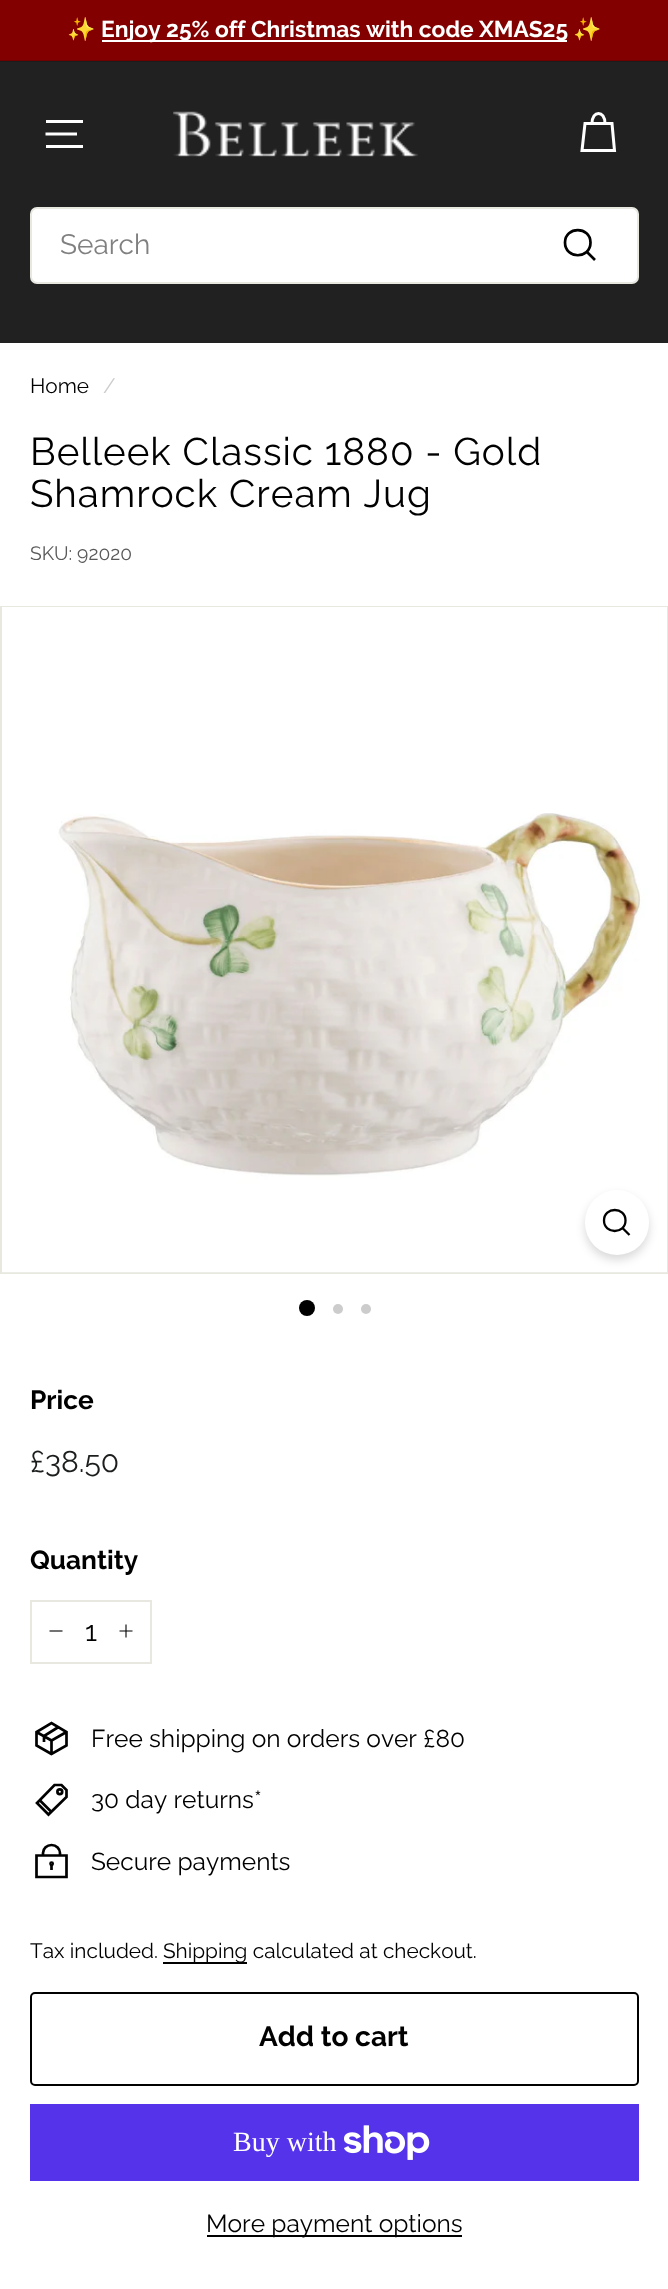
<svg xmlns="http://www.w3.org/2000/svg" xmlns:xlink="http://www.w3.org/1999/xlink" width="668" height="2289" viewBox="0 0 668 2289">
<style>*{font-kerning:none!important;font-variant-ligatures:none!important}</style>
<style>
.cls-1{font:bold 22.75px Noto Color Emoji;fill:#ffffff}
.cls-2{font:bold 22.75px Raleway;fill:#ffffff}
.cls-3{font:100 28px Raleway;fill:#808080}
.cls-4{font:100 20.8px Raleway;fill:#000000}
.cls-5{font:100 20.8px Raleway;fill:#cccccc}
.cls-6{font:100 38.6px Raleway;letter-spacing:0.95px;fill:#000000}
.cls-7{font:100 19.25px Raleway;fill:#595959}
.cls-8{font:bold 26.25px Raleway;fill:#000000}
.cls-9{font:100 30px Raleway;fill:#1c1d1d}
.cls-10{font:100 28px Raleway;fill:#000000}
.cls-11{font:100 24.5px Raleway;fill:#000000}
.cls-12{font:bold 28px Raleway;fill:#000000}
.cls-13{font:28px Liberation Serif;fill:#ffffff}
</style>
<rect width="100%" height="100%" fill="#ffffff"/>
<rect fill="#820000" x="0" y="0" width="668" height="60"/>
<rect fill="#6f0000" x="0" y="60" width="668" height="1"/>
<rect fill="#ffffff" x="102" y="40" width="465" height="2"/>
<rect fill="#1c1c1c" x="0" y="61" width="668" height="1"/>
<rect fill="#212121" x="0" y="62" width="668" height="169"/>
<rect fill="#ffffff" x="46" y="120" width="37" height="3"/>
<path fill="none" stroke="#ffffff" stroke-width="3" d="M45.5 134H77"/>
<rect fill="#ffffff" x="46" y="145" width="37" height="3"/>
<image xlink:href="image0.png" x="173" y="111" width="245" height="46"/>
<path fill="none" stroke="#ffffff" stroke-width="3" d="M592 123.5C592 110 605 110 605 123.5M585 123.5H612L614.5 150.5H582Z"/>
<path fill="#212121" d="M0 231V343H668V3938H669V231Z"/>
<rect fill="#ffffff" stroke="#e8e8e1" stroke-width="2" x="31" y="208" width="607" height="75" rx="6"/>
<path fill="none" stroke="#000000" stroke-width="2.7" d="M590.5 242.5C590.5 259.5 565 259.5 565 242.5C565 226 590.5 226 590.5 242.5ZM595 260L587 252"/>
<rect fill="none" stroke="#e8e8e1" stroke-width="2" x="1" y="607" width="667" height="666"/>
<rect fill="#ffffff" x="2" y="607" width="665" height="1"/>
<image xlink:href="image1.png" x="2" y="813" width="665" height="460"/>
<rect fill="#000000" fill-opacity="0.15" filter="blur(5px)" x="585" y="1195" width="64" height="65" rx="32"/>
<rect fill="#ffffff" x="585" y="1190" width="64" height="65" rx="32"/>
<path fill="none" stroke="#000000" stroke-width="2.3" d="M625.5 1220.5C625.5 1234.5 604 1234.5 604 1220.5C604 1206.5 625.5 1206.5 625.5 1220.5ZM629.5 1235L622.5 1228"/>
<circle fill="#000000" cx="307" cy="1308" r="8"/>
<circle fill="#cccccc" cx="338" cy="1309" r="5"/>
<circle fill="#cccccc" cx="366" cy="1309" r="5"/>
<rect fill="none" stroke="#e8e8e1" stroke-width="2" x="31" y="1601" width="120" height="62"/>
<path fill="none" stroke="#000000" stroke-width="1.1" d="M62.5 1631H49.5"/>
<path fill="none" stroke="#000000" stroke-width="1.1" d="M126 1624.5V1637.5M132.5 1631H119.5"/>
<path fill="none" stroke="#000000" stroke-width="2.7" d="M51.5 1754L36.5 1745.5V1732L51.5 1723L66.5 1732V1745.5ZM51.5 1754V1740.5L66.5 1732M51.5 1740.5L36.5 1732M58.5 1727L44 1736V1742"/>
<path fill="none" stroke="#000000" stroke-width="2.7" d="M61.5 1785H54.5L37 1803L48.5 1814.5L66.5 1797V1790Z"/>
<circle fill="none" stroke="#000000" stroke-width="2.7" cx="59.8" cy="1791.7" r="2.4"/>
<path fill="none" stroke="#000000" stroke-width="2.7" d="M39.5 1800L51.5 1812"/>
<path fill="none" stroke="#000000" stroke-width="2.7" d="M43 1855.5V1853C43 1848.5 47 1845 51.5 1845C56.5 1845 60 1849 60 1853V1855.5M36.5 1855.5H66.5V1877H36.5ZM51.5 1865V1870"/>
<circle fill="none" stroke="#000000" stroke-width="2.7" cx="51.6" cy="1863.8" r="1.1"/>
<rect fill="#000000" x="163" y="1962" width="84" height="2"/>
<rect fill="none" stroke="#000000" stroke-width="2" x="31" y="1993" width="607" height="92" rx="4"/>
<rect fill="#5433eb" x="30" y="2104" width="609" height="77"/>
<image xlink:href="image2.png" x="344" y="2125" width="86" height="35"/>
<rect fill="#000000" x="207" y="2235" width="255" height="2"/>
<text class="cls-1" x="67" y="37">✨</text>
<text class="cls-2" x="101" y="37">Enjoy 25% off Christmas with code</text>
<text class="cls-2" x="479" y="37">XMAS25</text>
<text class="cls-1" x="573" y="37">✨</text>
<text class="cls-3" x="60" y="254">Search</text>
<text class="cls-4" x="30" y="393">Home</text>
<text class="cls-5" x="103" y="393">/</text>
<text class="cls-6"><tspan x="30" y="465">Belleek Classic 1880 - Gold</tspan><tspan x="30" y="507">Shamrock Cream Jug</tspan></text>
<text class="cls-7" x="30" y="560">SKU: 92020</text>
<text class="cls-8" x="30" y="1409">Price</text>
<text class="cls-9" x="30" y="1472">£38.50</text>
<text class="cls-8" x="30" y="1569">Quantity</text>
<text class="cls-10" x="85" y="1641">1</text>
<text class="cls-11" x="91" y="1747">Free shipping on orders over £80</text>
<text class="cls-11" x="91" y="1808">30 day returns*</text>
<text class="cls-11" x="91" y="1870">Secure payments</text>
<text class="cls-4" x="30" y="1958">Tax included.</text>
<text class="cls-4" x="163" y="1958">Shipping calculated at checkout.</text>
<text class="cls-12" x="259" y="2046">Add to cart</text>
<text class="cls-13" x="233" y="2151">Buy with</text>
<text class="cls-11" x="206" y="2232">More payment options</text>
</svg>
